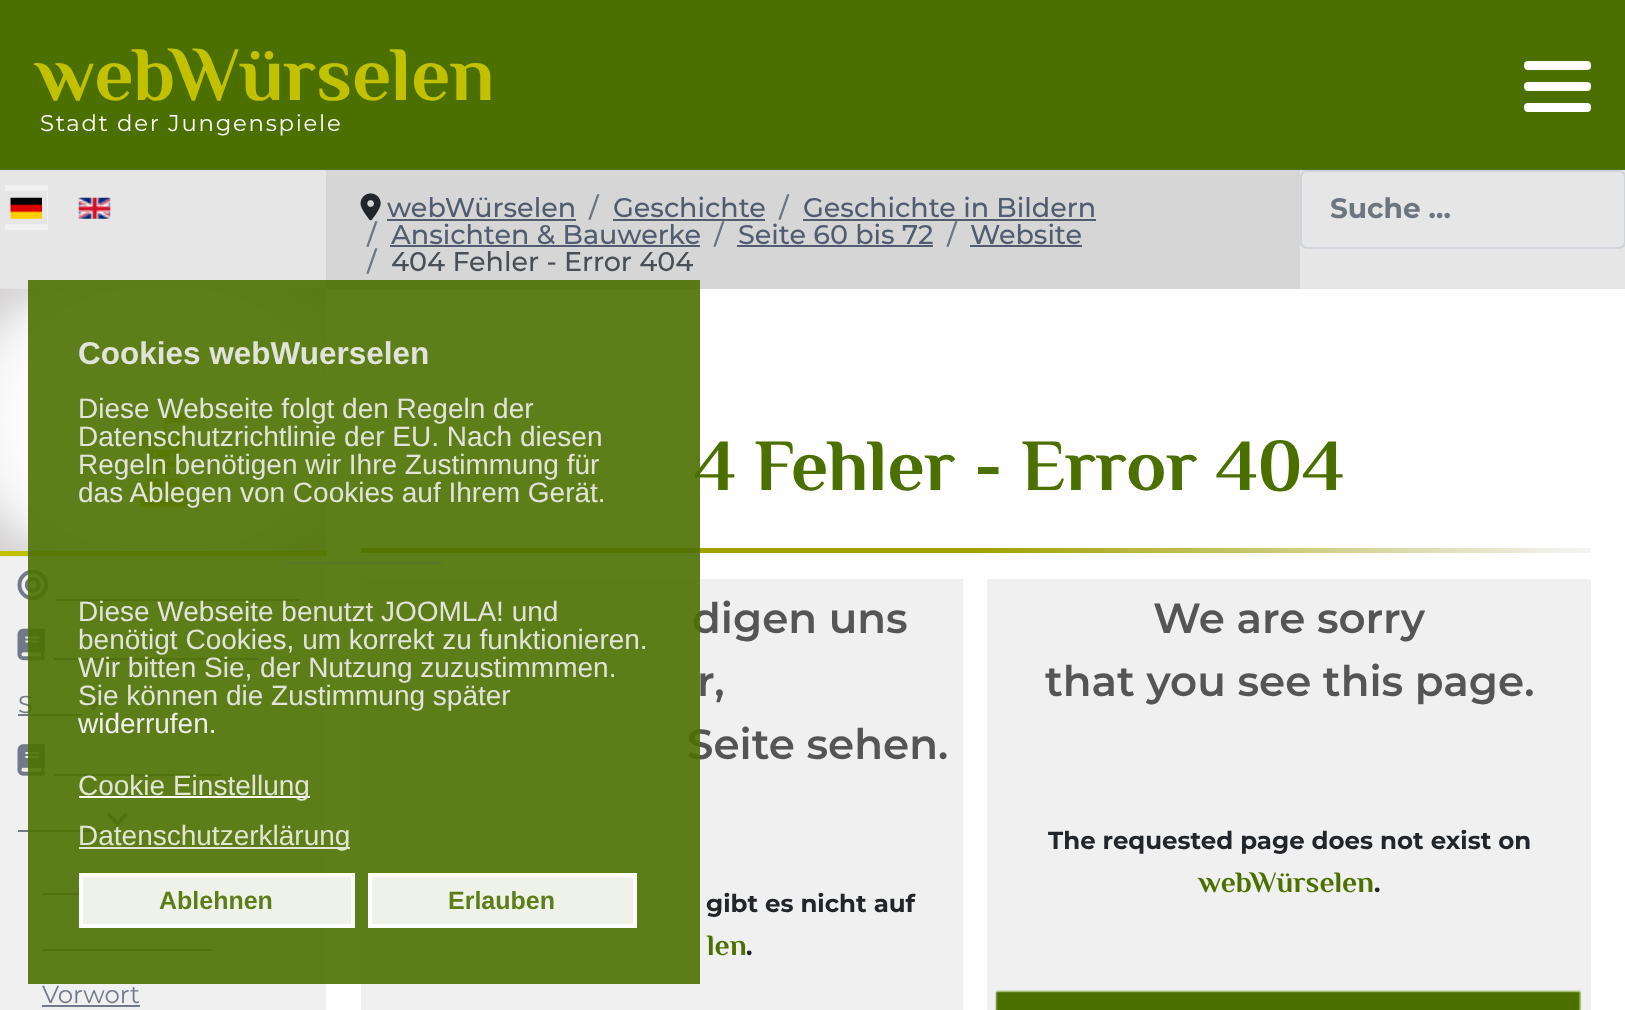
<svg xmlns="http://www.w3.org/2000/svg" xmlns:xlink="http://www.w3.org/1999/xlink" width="1625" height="1010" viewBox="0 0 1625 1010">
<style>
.cls-1{font:bold 77px Philosopher;fill:#c1c100}
.cls-2{font:22.75px Montserrat;letter-spacing:1.75px;fill:#ffffff}
.cls-3{font:500 27px Montserrat;fill:#515c70}
.cls-4{font:500 27px Montserrat;fill:#6d757e}
.cls-5{font:500 27px Montserrat;fill:#484f56}
.cls-6{font:bold 28px Montserrat;fill:#6d757e}
.cls-7{font:24.5px Montserrat;fill:#717a8a}
.cls-8{font:bold 73.5px Philosopher;fill:#4c7000}
.cls-9{font:600 42px Montserrat;fill:#555555}
.cls-10{font:28px Liberation Sans;fill:#e0e6d3}
.cls-11{font:28px Liberation Sans;fill:#f0f0f0}
.cls-12{font:28px Liberation Sans;fill:#e1e4da}
.cls-13{font:bold 25px Liberation Sans;fill:#5c7d18}
.cls-14{font:bold 31.5px Liberation Sans;fill:#e1e4da}
.cls-15{font:bold 24.5px Montserrat;fill:#22262a}
.cls-16{font:bold 29.5px Philosopher;fill:#4c7000}
</style>
<defs>
<linearGradient id="g1" gradientUnits="userSpaceOnUse" x1="361" y1="550" x2="1591" y2="550"><stop offset="0" stop-color="#a1a100"/><stop offset="0.5" stop-color="#a1a100"/><stop offset="1" stop-color="#f5f4f6"/></linearGradient>
</defs>
<rect width="100%" height="100%" fill="#e6e6e6"/>
<rect fill="#4c7000" x="0" y="0" width="1625" height="170"/>
<rect fill="#ffffff" x="1524" y="82" width="67" height="9" rx="4"/>
<rect fill="#ffffff" x="1524" y="61" width="67" height="9" rx="4"/>
<rect fill="#ffffff" x="1524" y="103" width="67" height="9" rx="4"/>
<rect fill="#f0f0f0" x="5" y="185" width="43" height="45"/>
<rect fill="#e6e6e6" x="5" y="191" width="42" height="33"/>
<image xlink:href="image0.png" x="10" y="197" width="32" height="22"/>
<image xlink:href="image1.png" x="78" y="197" width="33" height="22"/>
<rect fill="#d6d6d6" x="326" y="170" width="974" height="119"/>
<image xlink:href="image2.png" x="360" y="193" width="21" height="28"/>
<rect fill="#515c70" x="387" y="219" width="189" height="2"/>
<rect fill="#515c70" x="613" y="219" width="152" height="2"/>
<rect fill="#515c70" x="803" y="219" width="293" height="2"/>
<rect fill="#515c70" x="390" y="245" width="310" height="2"/>
<rect fill="#515c70" x="737" y="245" width="196" height="2"/>
<rect fill="#515c70" x="970" y="245" width="112" height="2"/>
<rect fill="none" stroke="#ced4da" stroke-width="2" x="1301" y="171" width="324" height="77" rx="6"/>
<image xlink:href="image3.png" x="0" y="288" width="326" height="263"/>
<rect fill="#c1c100" x="0" y="551" width="326" height="5"/>
<image xlink:href="image4.png" x="139" y="409" width="49" height="99"/>
<rect fill="#f0f0f0" x="0" y="557" width="326" height="453"/>
<image xlink:href="image5.png" x="17" y="569" width="31" height="32"/>
<rect fill="#717a8a" x="56" y="599" width="243" height="2"/>
<image xlink:href="image6.png" x="17" y="628" width="29" height="33"/>
<rect fill="#717a8a" x="54" y="658" width="205" height="2"/>
<rect fill="#717a8a" x="18" y="714" width="64" height="2"/>
<image xlink:href="image7.png" x="82" y="697" width="22" height="13"/>
<image xlink:href="image8.png" x="17" y="744" width="29" height="32"/>
<rect fill="#717a8a" x="54" y="774" width="167" height="2"/>
<image xlink:href="image9.png" x="107" y="812" width="21" height="14"/>
<rect fill="#717a8a" x="18" y="830" width="89" height="2"/>
<rect fill="#717a8a" x="42" y="893" width="98" height="2"/>
<rect fill="#717a8a" x="42" y="949" width="170" height="2"/>
<rect fill="#717a8a" x="42" y="1005" width="98" height="2"/>
<rect fill="#ffffff" x="326" y="289" width="1299" height="721"/>
<rect fill="url(#g1)" x="361" y="548" width="1230" height="5"/>
<rect fill="#f0f0f0" x="361" y="579" width="602" height="431"/>
<rect fill="#f0f0f0" x="987" y="579" width="604" height="431"/>
<image xlink:href="image10.png" x="995" y="990" width="587" height="20"/>
<text class="cls-1" x="35" y="100">webWürselen</text>
<text class="cls-2" x="40" y="131">Stadt der Jungenspiele</text>
<text class="cls-3" x="387" y="217">webWürselen</text>
<text class="cls-4" x="589" y="217">/</text>
<text class="cls-3" x="613" y="217">Geschichte</text>
<text class="cls-4" x="779" y="217">/</text>
<text class="cls-3" x="803" y="217">Geschichte in Bildern</text>
<text class="cls-4" x="367" y="244">/</text>
<text class="cls-3" x="391" y="244">Ansichten &amp; Bauwerke</text>
<text class="cls-4" x="714" y="244">/</text>
<text class="cls-3" x="738" y="244">Seite 60 bis 72</text>
<text class="cls-4" x="947" y="244">/</text>
<text class="cls-3" x="970" y="244">Website</text>
<text class="cls-4" x="367" y="271">/</text>
<text class="cls-5" x="391" y="271">404 Fehler - Error 404</text>
<text class="cls-6" x="1330" y="218">Suche …</text>
<text class="cls-7" x="18" y="713">S</text>
<text class="cls-7" x="42" y="1003">Vorwort</text>
<text class="cls-8" x="694" y="490">4 Fehler - Error 404</text>
<text class="cls-9" x="692" y="633">digen uns</text>
<text class="cls-9" x="697" y="696">r,</text>
<text class="cls-9" x="687" y="759">Seite sehen.</text>
<rect fill="#4c7000" fill-opacity="0.9" x="28" y="280" width="672" height="704"/>
<rect fill="#e0e6d3" x="79" y="847" width="271" height="2"/>
<text class="cls-10" x="78" y="845">Datenschutzerklärung</text>
<rect fill="#fcfcfc" x="79" y="796" width="231" height="2"/>
<text class="cls-10" x="78" y="795">Cookie Einstellung</text>
<rect fill="#5b762d" x="285" y="562" width="158" height="2"/>
<text class="cls-11" x="78" y="733">widerrufen.</text>
<text class="cls-12" x="78" y="705">Sie können die Zustimmung später</text>
<text class="cls-12" x="78" y="677">Wir bitten Sie, der Nutzung zuzustimmmen.</text>
<text class="cls-12" x="78" y="649">benötigt Cookies, um korrekt zu funktionieren.</text>
<text class="cls-12" x="78" y="621">Diese Webseite benutzt JOOMLA! und</text>
<text class="cls-12" x="78" y="502">das Ablegen von Cookies auf Ihrem Gerät.</text>
<text class="cls-12" x="78" y="474">Regeln benötigen wir Ihre Zustimmung für</text>
<text class="cls-12" x="78" y="446">Datenschutzrichtlinie der EU. Nach diesen</text>
<text class="cls-12" x="78" y="418">Diese Webseite folgt den Regeln der</text>
<rect fill="#ffffff" fill-opacity="0.9" stroke="#fdfefd" stroke-width="4" x="370" y="875" width="265" height="51"/>
<text class="cls-13" x="448" y="909">Erlauben</text>
<rect fill="#ffffff" fill-opacity="0.9" stroke="#fdfefd" stroke-width="4" x="81" y="875" width="272" height="51"/>
<text class="cls-13" x="159" y="909">Ablehnen</text>
<text class="cls-14" x="78" y="364">Cookies webWuerselen</text>
<text class="cls-15" x="706" y="912">gibt es nicht auf</text>
<text class="cls-16" x="707" y="955">len</text>
<text class="cls-15" x="746" y="955">.</text>
<text class="cls-9" x="1153" y="633">We are sorry</text>
<text class="cls-9" x="1045" y="696">that you see this page.</text>
<text class="cls-15" x="1048" y="849">The requested page does not exist on</text>
<text class="cls-16" x="1198" y="892">webWürselen</text>
<text class="cls-15" x="1374" y="892">.</text>
</svg>
